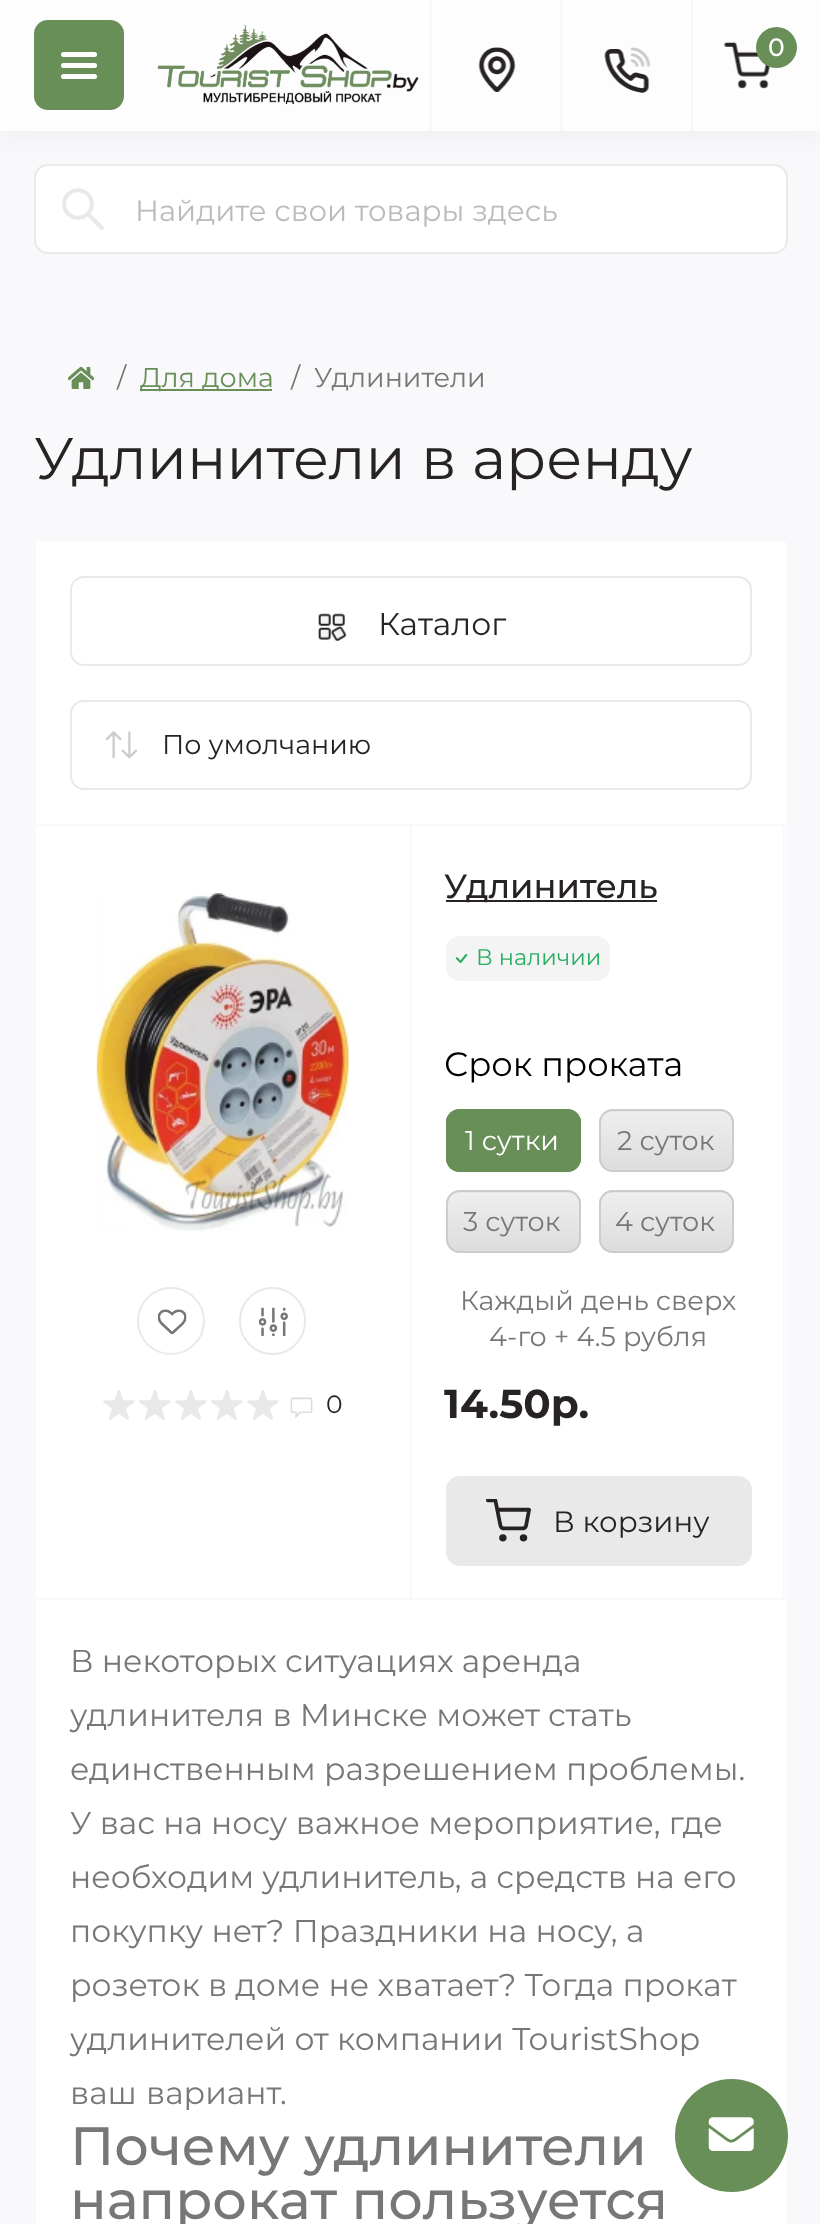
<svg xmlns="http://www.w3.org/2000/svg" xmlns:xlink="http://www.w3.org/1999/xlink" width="820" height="2224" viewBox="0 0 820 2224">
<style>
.cls-1{font:500 25px Montserrat;fill:#ffffff}
.cls-2{font:29.25px Montserrat;fill:#bbbbbb}
.cls-3{font:27px Montserrat;fill:#777777}
.cls-4{font:27px Montserrat;fill:#698f59}
.cls-5{font:58.5px Montserrat;fill:#272323}
.cls-6{font:31.5px Montserrat;fill:#272323}
.cls-7{font:27px Montserrat;fill:#272323}
.cls-8{font:25px Montserrat;fill:#272323}
.cls-9{font:500 33.75px Montserrat;fill:#272323}
.cls-10{font:22.5px Montserrat;fill:#27ae60}
.cls-11{font:33.75px Montserrat;fill:#000000}
.cls-12{font:27px Montserrat;fill:#ffffff}
.cls-13{font:bold 40.5px Montserrat;fill:#272323}
.cls-14{font:29.25px Montserrat;fill:#272323}
.cls-15{font:31.5px Montserrat;fill:#777777}
.cls-16{font:500 54px Montserrat;fill:#777777}
</style>
<defs>
<clipPath id="clip1"><rect x="36" y="826" width="749" height="774"/></clipPath>
<clipPath id="clip2"><rect x="446" y="1109" width="135" height="63" rx="14"/></clipPath>
<clipPath id="clip3"><rect x="599" y="1109" width="135" height="63" rx="14"/></clipPath>
<linearGradient id="g1" gradientUnits="userSpaceOnUse" x1="666" y1="1112" x2="666" y2="1170"><stop offset="0" stop-color="#eeeeee"/><stop offset="1" stop-color="#dddddd"/></linearGradient>
<clipPath id="clip4"><rect x="446" y="1190" width="135" height="63" rx="14"/></clipPath>
<linearGradient id="g2" gradientUnits="userSpaceOnUse" x1="513" y1="1193" x2="513" y2="1251"><stop offset="0" stop-color="#eeeeee"/><stop offset="1" stop-color="#dddddd"/></linearGradient>
<clipPath id="clip5"><rect x="599" y="1190" width="135" height="63" rx="14"/></clipPath>
<linearGradient id="g3" gradientUnits="userSpaceOnUse" x1="666" y1="1193" x2="666" y2="1251"><stop offset="0" stop-color="#eeeeee"/><stop offset="1" stop-color="#dddddd"/></linearGradient>
</defs>
<rect width="100%" height="100%" fill="#f9f9fc"/>
<rect fill="#ffffff" stroke="#e9e9e9" stroke-width="2" x="35" y="165" width="752" height="88" rx="13"/>
<rect fill="#000000" fill-opacity="0.06" filter="blur(17px)" x="0" y="0" width="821" height="131"/>
<rect fill="#fdfdfd" x="0" y="0" width="820" height="131"/>
<rect fill="#698f59" x="34" y="20" width="90" height="90" rx="14"/>
<rect fill="#ffffff" x="61" y="52" width="36" height="5" rx="2.5"/>
<rect fill="#ffffff" x="61" y="63" width="36" height="5" rx="2.5"/>
<rect fill="#ffffff" x="61" y="74" width="36" height="5" rx="2.5"/>
<rect fill="#f7f7f7" x="430" y="0" width="2" height="131"/>
<image xlink:href="image0.png" x="478" y="47" width="38" height="45"/>
<rect fill="#f7f7f7" x="560" y="0" width="2" height="131"/>
<image xlink:href="image1.png" x="604" y="47" width="47" height="46"/>
<image xlink:href="image2.png" x="157" y="24" width="262" height="81"/>
<rect fill="#f7f7f7" x="691" y="0" width="2" height="131"/>
<image xlink:href="image3.png" x="724" y="42" width="46" height="47"/>
<circle fill="#698f59" cx="776.5" cy="47.5" r="20.5"/>
<image xlink:href="image4.png" x="62" y="188" width="43" height="42"/>
<image xlink:href="image5.png" x="68" y="366" width="27" height="23"/>
<rect fill="#698f59" x="140" y="389" width="132" height="2"/>
<rect fill="#ffffff" x="36" y="542" width="750" height="1682"/>
<rect fill="none" stroke="#e9e9e9" stroke-width="2" x="71" y="577" width="680" height="88" rx="13"/>
<image xlink:href="image6.png" x="318" y="613" width="29" height="28"/>
<image xlink:href="image7.png" x="106" y="731" width="31" height="28"/>
<rect fill="none" stroke="#e9e9e9" stroke-width="2" x="71" y="701" width="680" height="88" rx="13"/>
<path fill="#f9f9fc" d="M34 824V1600H785H36V826H785V824Z"/>
<g clip-path="url(#clip1)">
<path fill="#f9f9fc" fill-rule="evenodd" d="M-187 603H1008V1822H-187ZM34 824H783V1598H34Z"/>
</g>
<rect fill="#f9f9fc" x="410" y="826" width="2" height="774"/>
<image xlink:href="image8.png" x="96" y="893" width="253" height="338"/>
<circle fill="none" stroke="#e9e9e9" stroke-width="2" cx="171" cy="1321" r="33"/>
<image xlink:href="image9.png" x="158" y="1309" width="29" height="26"/>
<rect fill="none" stroke="#e9e9e9" stroke-width="2" x="240" y="1288" width="65" height="66" rx="32.5"/>
<image xlink:href="image10.png" x="259" y="1307" width="29" height="30"/>
<image xlink:href="image11.png" x="103" y="1390" width="32" height="30"/>
<image xlink:href="image11.png" x="139" y="1390" width="32" height="30"/>
<image xlink:href="image11.png" x="175" y="1390" width="32" height="30"/>
<image xlink:href="image11.png" x="211" y="1390" width="32" height="30"/>
<image xlink:href="image12.png" x="247" y="1390" width="32" height="30"/>
<image xlink:href="image13.png" x="290" y="1397" width="23" height="21"/>
<rect fill="#272323" x="446" y="900" width="211" height="2"/>
<rect fill="#f4f4f4" x="446" y="936" width="164" height="45" rx="14"/>
<image xlink:href="image14.png" x="455" y="953" width="13" height="11"/>
<rect fill="#698f59" x="446" y="1109" width="135" height="63" rx="14"/>
<g clip-path="url(#clip2)">
<rect fill="#698f59" x="446" y="1112" width="135" height="58"/>
</g>
<rect fill="none" stroke="#698f59" stroke-width="2" x="447" y="1110" width="133" height="61" rx="13"/>
<rect fill="#e7e7e7" x="599" y="1109" width="135" height="63" rx="14"/>
<g clip-path="url(#clip3)">
<rect fill="url(#g1)" x="599" y="1112" width="135" height="58"/>
</g>
<rect fill="none" stroke="#cccccc" stroke-width="2" x="600" y="1110" width="133" height="61" rx="13"/>
<rect fill="#e7e7e7" x="446" y="1190" width="135" height="63" rx="14"/>
<g clip-path="url(#clip4)">
<rect fill="url(#g2)" x="446" y="1193" width="135" height="58"/>
</g>
<rect fill="none" stroke="#cccccc" stroke-width="2" x="447" y="1191" width="133" height="61" rx="13"/>
<rect fill="#e7e7e7" x="599" y="1190" width="135" height="63" rx="14"/>
<g clip-path="url(#clip5)">
<rect fill="url(#g3)" x="599" y="1193" width="135" height="58"/>
</g>
<rect fill="none" stroke="#cccccc" stroke-width="2" x="600" y="1191" width="133" height="61" rx="13"/>
<rect fill="#e9e9e9" x="446" y="1476" width="306" height="90" rx="14"/>
<image xlink:href="image15.png" x="486" y="1499" width="45" height="43"/>
<circle fill="#698f59" cx="731.5" cy="2135.5" r="56.5"/>
<image xlink:href="image16.png" x="708" y="2117" width="46" height="34"/>
<text class="cls-1" x="768" y="56">0</text>
<text class="cls-2" x="135" y="221">Найдите свои товары здесь</text>
<text class="cls-3" x="117" y="387">/</text>
<text class="cls-4" x="140" y="387">Для дома</text>
<text class="cls-3" x="291" y="387">/</text>
<text class="cls-3" x="314" y="387">Удлинители</text>
<text class="cls-5" x="34" y="479">Удлинители в аренду</text>
<text class="cls-6" x="378" y="635">Каталог</text>
<text class="cls-7" x="162" y="754">По умолчанию</text>
<text class="cls-8" x="326" y="1413">0</text>
<text class="cls-9" x="444" y="898">Удлинитель</text>
<text class="cls-10" x="476" y="965">В наличии</text>
<text class="cls-11" x="444" y="1076">Срок проката</text>
<text class="cls-12" x="465" y="1150">1 сутки</text>
<text class="cls-3" x="617" y="1150">2 суток</text>
<text class="cls-3" x="463" y="1231">3 суток</text>
<text class="cls-3" x="615" y="1231">4 суток</text>
<text class="cls-3" x="460" y="1310">Каждый день сверх</text>
<text class="cls-3" x="489" y="1346">4-го + 4.5 рубля</text>
<text class="cls-13" x="444" y="1418">14.50р.</text>
<text class="cls-14" x="553" y="1532">В корзину</text>
<text class="cls-15"><tspan x="70" y="1672">В некоторых ситуациях аренда</tspan><tspan x="70" y="1726">удлинителя в Минске может стать</tspan><tspan x="70" y="1780">единственным разрешением проблемы.</tspan><tspan x="70" y="1834">У вас на носу важное мероприятие, где</tspan><tspan x="70" y="1888">необходим удлинитель, а средств на его</tspan><tspan x="70" y="1942" word-spacing="0.25">покупку нет? Праздники на носу, а</tspan><tspan x="70" y="1996">розеток в доме не хватает? Тогда прокат</tspan><tspan x="70" y="2050">удлинителей от компании TouristShop</tspan><tspan x="70" y="2104" word-spacing="1">ваш вариант.</tspan></text>
<text class="cls-16"><tspan x="70" y="2165">Почему удлинители</tspan><tspan x="70" y="2219">напрокат пользуется</tspan></text>
</svg>
